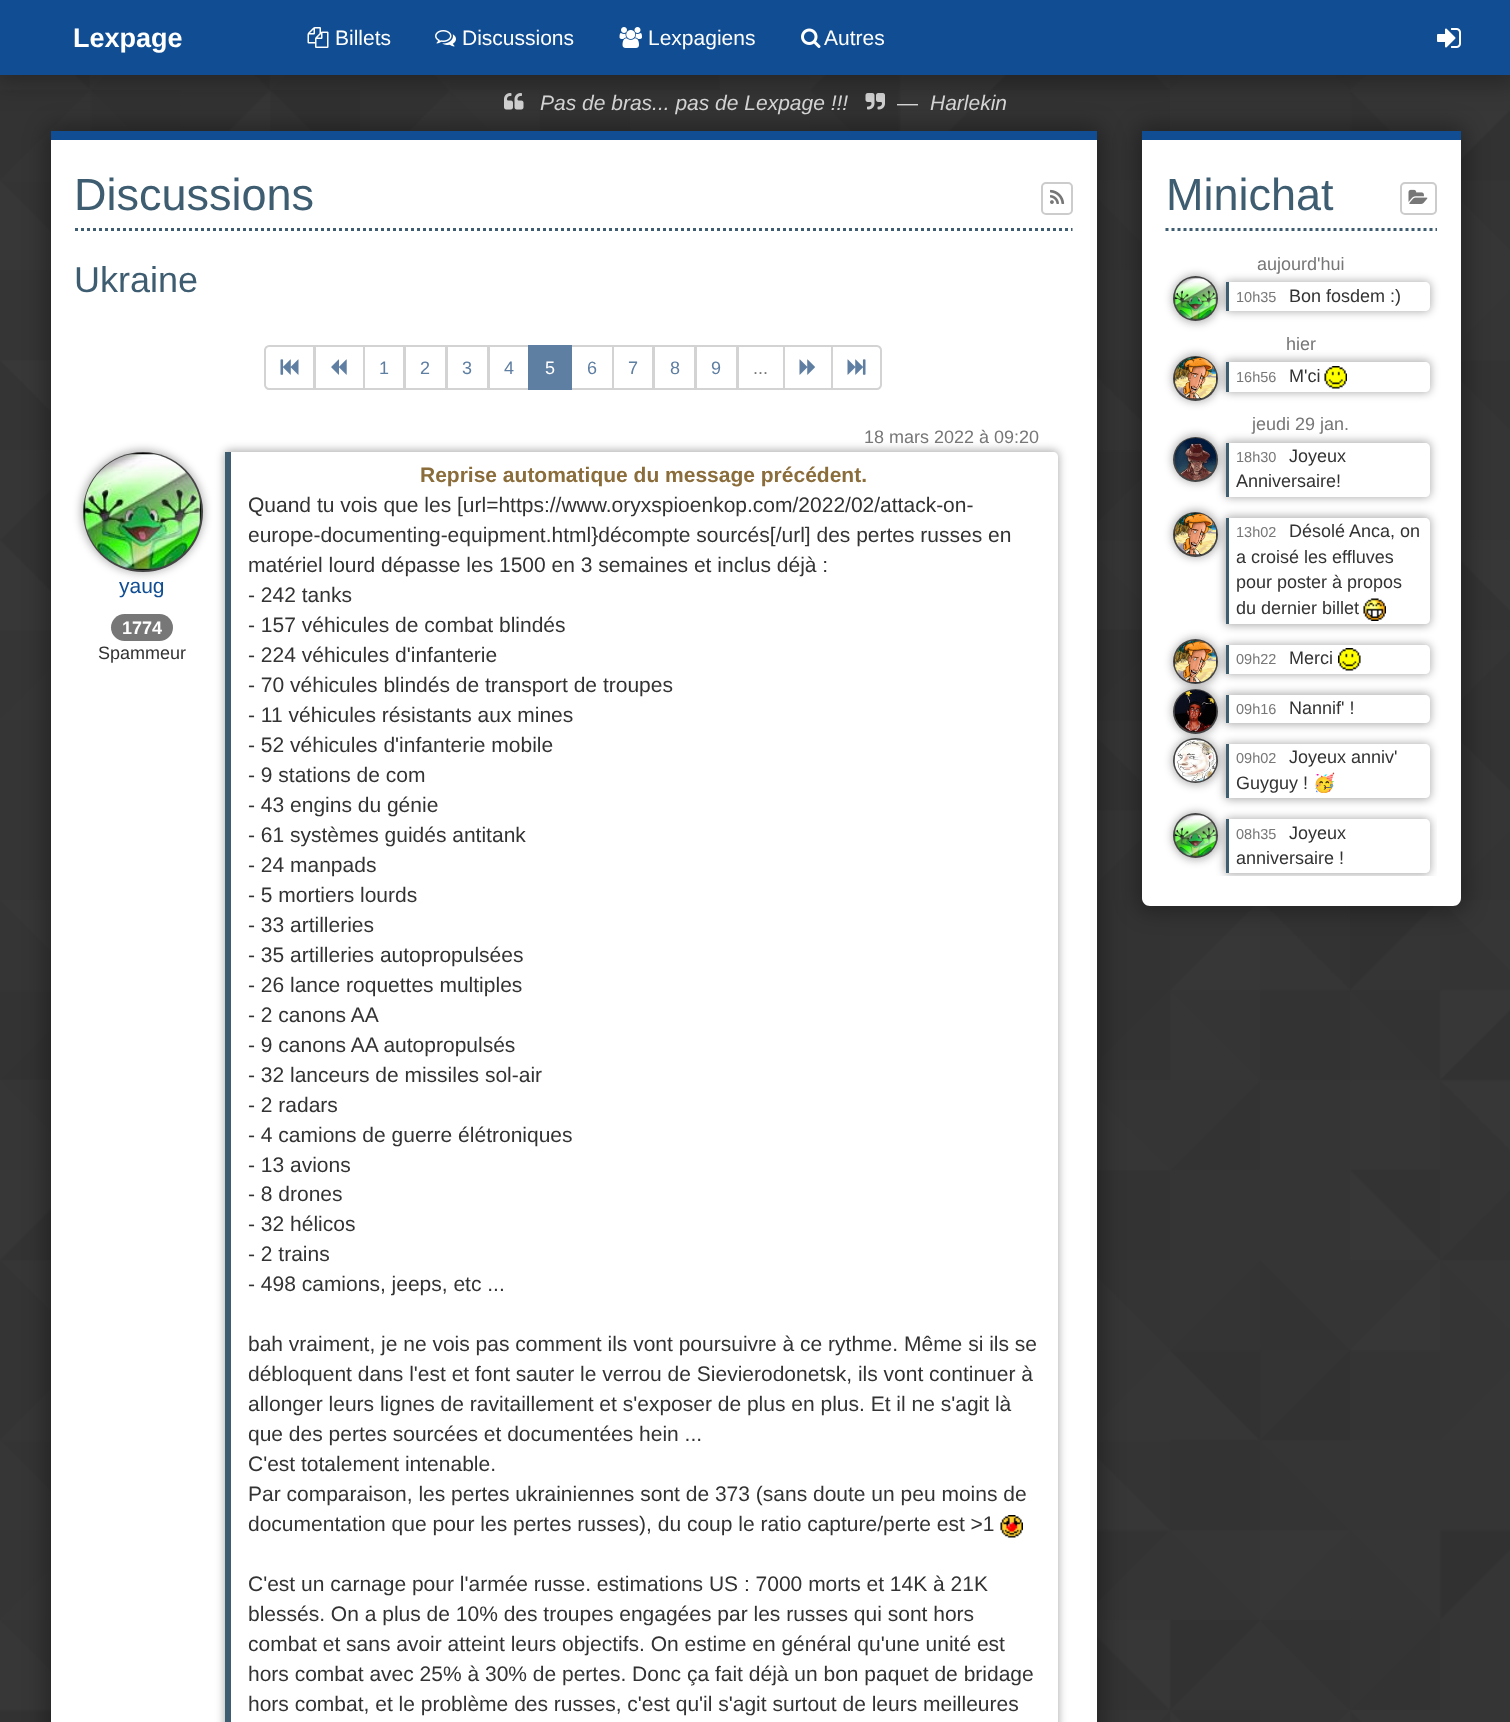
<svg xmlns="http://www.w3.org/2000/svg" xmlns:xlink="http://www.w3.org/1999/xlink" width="1510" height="1722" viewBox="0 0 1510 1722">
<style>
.cls-1{font:bold 27px Liberation Sans;fill:#ffffff}
.cls-2{font:21px Liberation Sans;fill:#ffffff}
.cls-3{font:italic 21px Liberation Sans;fill:#d3d3d3}
.cls-4{font:21px Liberation Sans;fill:#d3d3d3}
.cls-5{font:45px Liberation Sans;fill:#3e5d71}
.cls-6{font:36px Liberation Sans;fill:#3e5d71}
.cls-7{font:18px Liberation Sans;fill:#5e7ea2}
.cls-8{font:18px Liberation Sans;fill:#ffffff}
.cls-9{font:18px Liberation Sans;fill:#777777}
.cls-10{font:21px Liberation Sans;fill:#104d92}
.cls-11{font:bold 18px Liberation Sans;fill:#ffffff}
.cls-12{font:18px Liberation Sans;fill:#333333}
.cls-13{font:bold 21px Liberation Sans;fill:#8a6d3b}
.cls-14{font:21px Liberation Sans;fill:#333333}
.cls-15{font:14.5px Liberation Sans;fill:#777777}
.cls-16{font:18px Noto Color Emoji;fill:#333333}
</style>
<defs>
<clipPath id="clip1"><path d="M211 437H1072V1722H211ZM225 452H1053C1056 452 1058 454 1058 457V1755C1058 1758 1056 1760 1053 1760H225Z" clip-rule="evenodd"/></clipPath>
<clipPath id="clip2"><path d="M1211 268H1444V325H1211ZM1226 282H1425C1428 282 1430 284 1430 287V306C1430 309 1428 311 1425 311H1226Z" clip-rule="evenodd"/></clipPath>
<clipPath id="clip3"><path d="M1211 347H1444V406H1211ZM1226 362H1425C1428 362 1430 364 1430 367V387C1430 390 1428 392 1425 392H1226Z" clip-rule="evenodd"/></clipPath>
<clipPath id="clip4"><path d="M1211 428H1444V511H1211ZM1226 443H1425C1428 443 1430 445 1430 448V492C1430 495 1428 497 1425 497H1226Z" clip-rule="evenodd"/></clipPath>
<clipPath id="clip5"><path d="M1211 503H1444V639H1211ZM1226 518H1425C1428 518 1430 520 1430 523V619C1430 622 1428 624 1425 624H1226Z" clip-rule="evenodd"/></clipPath>
<clipPath id="clip6"><path d="M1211 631H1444V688H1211ZM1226 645H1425C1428 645 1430 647 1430 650V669C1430 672 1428 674 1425 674H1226Z" clip-rule="evenodd"/></clipPath>
<clipPath id="clip7"><path d="M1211 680H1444V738H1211ZM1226 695H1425C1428 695 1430 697 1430 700V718C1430 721 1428 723 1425 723H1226Z" clip-rule="evenodd"/></clipPath>
<clipPath id="clip8"><path d="M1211 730H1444V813H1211ZM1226 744H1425C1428 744 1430 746 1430 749V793C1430 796 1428 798 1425 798H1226Z" clip-rule="evenodd"/></clipPath>
<clipPath id="clip9"><rect x="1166" y="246" width="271" height="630"/></clipPath>
<clipPath id="clip10"><path d="M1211 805H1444V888H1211ZM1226 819H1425C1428 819 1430 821 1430 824V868C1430 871 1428 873 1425 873H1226Z" clip-rule="evenodd"/></clipPath>
</defs>
<rect width="100%" height="100%" fill="#ffffff"/>
<image xlink:href="image0.png" x="0" y="75" width="1510" height="1647"/>
<image xlink:href="image6.png" x="504" y="93" width="20" height="17"/>
<image xlink:href="image7.png" x="865" y="93" width="20" height="17"/>
<rect fill="#000000" fill-opacity="0.3" filter="blur(13px)" x="-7" y="-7" width="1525" height="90"/>
<rect fill="#104d92" x="0" y="0" width="1510" height="75"/>
<image xlink:href="image1.png" x="307" y="27" width="22" height="21"/>
<image xlink:href="image2.png" x="435" y="30" width="21" height="17"/>
<image xlink:href="image3.png" x="619" y="27" width="23" height="21"/>
<image xlink:href="image4.png" x="801" y="28" width="20" height="20"/>
<image xlink:href="image5.png" x="1437" y="28" width="24" height="20"/>
<rect fill="#000000" fill-opacity="0.3" filter="blur(10.5px)" x="45" y="125" width="1058" height="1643" rx="14"/>
<rect fill="#ffffff" x="51" y="140" width="1046" height="1582"/>
<rect fill="#104d92" x="51" y="131" width="1046" height="9"/>
<path fill="none" stroke="#3e5d71" stroke-width="3" stroke-dasharray="3 3" d="M75 229.5H1072.5"/>
<rect fill="none" stroke="#cccccc" stroke-width="2" x="1042" y="183" width="30" height="31" rx="4"/>
<image xlink:href="image8.png" x="1050" y="189" width="15" height="15"/>
<path fill="none" stroke="#d3d3d3" stroke-width="2" d="M269 346H314V389H269C267 389 265 387 265 385V350C265 348 267 346 269 346Z"/>
<image xlink:href="image9.png" x="280" y="359" width="19" height="16"/>
<rect fill="none" stroke="#d3d3d3" stroke-width="2" x="315" y="346" width="49" height="43"/>
<image xlink:href="image10.png" x="331" y="359" width="16" height="16"/>
<rect fill="none" stroke="#d3d3d3" stroke-width="2" x="364" y="346" width="40" height="43"/>
<rect fill="none" stroke="#d3d3d3" stroke-width="2" x="405" y="346" width="41" height="43"/>
<rect fill="none" stroke="#d3d3d3" stroke-width="2" x="447" y="346" width="41" height="43"/>
<rect fill="none" stroke="#d3d3d3" stroke-width="2" x="489" y="346" width="40" height="43"/>
<rect fill="none" stroke="#d3d3d3" stroke-width="2" x="571" y="346" width="42" height="43"/>
<rect fill="#5e7ea2" x="528" y="345" width="44" height="45"/>
<rect fill="none" stroke="#d3d3d3" stroke-width="2" x="613" y="346" width="40" height="43"/>
<rect fill="none" stroke="#d3d3d3" stroke-width="2" x="654" y="346" width="41" height="43"/>
<rect fill="none" stroke="#d3d3d3" stroke-width="2" x="696" y="346" width="41" height="43"/>
<rect fill="none" stroke="#d3d3d3" stroke-width="2" x="738" y="346" width="46" height="43"/>
<rect fill="none" stroke="#d3d3d3" stroke-width="2" x="784" y="346" width="48" height="43"/>
<image xlink:href="image11.png" x="799" y="359" width="16" height="16"/>
<path fill="none" stroke="#d3d3d3" stroke-width="2" d="M832 346H877C879 346 881 348 881 350V385C881 387 879 389 877 389H832Z"/>
<image xlink:href="image12.png" x="847" y="359" width="19" height="16"/>
<rect fill="#000000" fill-opacity="0.3" filter="blur(4px)" x="81" y="450" width="123" height="123" rx="61.5"/>
<circle fill="#444444" cx="143" cy="512" r="60"/>
<image xlink:href="image13.png" x="84" y="453" width="117" height="117"/>
<rect fill="#777777" x="111" y="614" width="62" height="27" rx="13.5"/>
<g clip-path="url(#clip1)">
<rect fill="#000000" fill-opacity="0.3" filter="blur(4px)" x="224" y="450" width="835" height="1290" rx="6"/>
</g>
<rect fill="#3e5d71" x="225" y="452" width="6" height="1270"/>
<image xlink:href="image14.png" x="1000" y="1515" width="23" height="23"/>
<rect fill="#000000" fill-opacity="0.3" filter="blur(10.5px)" x="1136" y="125" width="331" height="787" rx="14"/>
<path fill="#ffffff" d="M1142 131H1461V898C1461 902.5 1457.5 906 1453 906H1150C1145.5 906 1142 902.5 1142 898Z"/>
<rect fill="#104d92" x="1142" y="131" width="319" height="9"/>
<path fill="none" stroke="#3e5d71" stroke-width="3" stroke-dasharray="3 3" d="M1165.5 229.5H1437"/>
<rect fill="none" stroke="#cccccc" stroke-width="2" x="1401" y="183" width="35" height="31" rx="4"/>
<image xlink:href="image15.png" x="1408" y="189" width="20" height="15"/>
<rect fill="#000000" fill-opacity="0.3" filter="blur(4px)" x="1172" y="275" width="48" height="48" rx="24"/>
<circle fill="#444444" cx="1195.5" cy="298.5" r="22.5"/>
<image xlink:href="image16.png" x="1174" y="277" width="43" height="43"/>
<g clip-path="url(#clip2)">
<rect fill="#000000" fill-opacity="0.3" filter="blur(4px)" x="1224" y="281" width="207" height="31" rx="6"/>
</g>
<rect fill="#3e5d71" x="1226" y="282" width="3" height="29"/>
<rect fill="#000000" fill-opacity="0.3" filter="blur(4px)" x="1172" y="354" width="48" height="48" rx="24"/>
<circle fill="#444444" cx="1195.5" cy="378.5" r="22.5"/>
<image xlink:href="image17.png" x="1174" y="357" width="43" height="42"/>
<g clip-path="url(#clip3)">
<rect fill="#000000" fill-opacity="0.3" filter="blur(4px)" x="1224" y="360" width="207" height="33" rx="6"/>
</g>
<rect fill="#3e5d71" x="1226" y="362" width="3" height="30"/>
<image xlink:href="image18.png" x="1324" y="366" width="23" height="23"/>
<rect fill="#000000" fill-opacity="0.3" filter="blur(4px)" x="1172" y="435" width="48" height="48" rx="24"/>
<circle fill="#444444" cx="1195.5" cy="459.5" r="22.5"/>
<image xlink:href="image19.png" x="1174" y="438" width="43" height="42"/>
<g clip-path="url(#clip4)">
<rect fill="#000000" fill-opacity="0.3" filter="blur(4px)" x="1224" y="441" width="207" height="57" rx="6"/>
</g>
<rect fill="#3e5d71" x="1226" y="443" width="3" height="54"/>
<rect fill="#000000" fill-opacity="0.3" filter="blur(4px)" x="1172" y="510" width="48" height="48" rx="24"/>
<circle fill="#444444" cx="1195.5" cy="534.5" r="22.5"/>
<image xlink:href="image17.png" x="1174" y="513" width="43" height="42"/>
<g clip-path="url(#clip5)">
<rect fill="#000000" fill-opacity="0.3" filter="blur(4px)" x="1224" y="516" width="207" height="110" rx="6"/>
</g>
<rect fill="#3e5d71" x="1226" y="518" width="3" height="106"/>
<image xlink:href="image20.png" x="1363" y="598" width="23" height="23"/>
<rect fill="#000000" fill-opacity="0.3" filter="blur(4px)" x="1172" y="638" width="48" height="48" rx="24"/>
<circle fill="#444444" cx="1195.5" cy="661.5" r="22.5"/>
<image xlink:href="image21.png" x="1174" y="640" width="43" height="43"/>
<g clip-path="url(#clip6)">
<rect fill="#000000" fill-opacity="0.3" filter="blur(4px)" x="1224" y="644" width="207" height="31" rx="6"/>
</g>
<rect fill="#3e5d71" x="1226" y="645" width="3" height="29"/>
<image xlink:href="image22.png" x="1338" y="648" width="23" height="23"/>
<rect fill="#000000" fill-opacity="0.3" filter="blur(4px)" x="1172" y="687" width="48" height="48" rx="24"/>
<circle fill="#444444" cx="1195.5" cy="711.5" r="22.5"/>
<image xlink:href="image23.png" x="1174" y="690" width="43" height="42"/>
<g clip-path="url(#clip7)">
<rect fill="#000000" fill-opacity="0.3" filter="blur(4px)" x="1224" y="693" width="207" height="32" rx="6"/>
</g>
<rect fill="#3e5d71" x="1226" y="695" width="3" height="28"/>
<rect fill="#000000" fill-opacity="0.3" filter="blur(4px)" x="1172" y="737" width="48" height="48" rx="24"/>
<circle fill="#444444" cx="1195.5" cy="760.5" r="22.5"/>
<image xlink:href="image24.png" x="1174" y="739" width="43" height="43"/>
<g clip-path="url(#clip8)">
<rect fill="#000000" fill-opacity="0.3" filter="blur(4px)" x="1224" y="743" width="207" height="57" rx="6"/>
</g>
<rect fill="#3e5d71" x="1226" y="744" width="3" height="54"/>
<rect fill="#000000" fill-opacity="0.3" filter="blur(4px)" x="1172" y="812" width="48" height="48" rx="24"/>
<circle fill="#444444" cx="1195.5" cy="835.5" r="22.5"/>
<image xlink:href="image25.png" x="1174" y="814" width="43" height="43"/>
<g clip-path="url(#clip9)">
<g clip-path="url(#clip10)">
<rect fill="#000000" fill-opacity="0.3" filter="blur(4px)" x="1224" y="818" width="207" height="57" rx="6"/>
</g>
</g>
<rect fill="#3e5d71" x="1226" y="819" width="3" height="54"/>
<text class="cls-1" x="73" y="47">Lexpage</text>
<text class="cls-2" x="335" y="45">Billets</text>
<text class="cls-2" x="462" y="45">Discussions</text>
<text class="cls-2" x="648" y="45">Lexpagiens</text>
<text class="cls-2" x="824" y="45">Autres</text>
<text class="cls-3" x="540" y="110">Pas de bras... pas de Lexpage !!!</text>
<text class="cls-4" x="897" y="110">—</text>
<text class="cls-3" x="930" y="110">Harlekin</text>
<text class="cls-5" x="74" y="210">Discussions</text>
<text class="cls-6" x="74" y="292">Ukraine</text>
<text class="cls-7" x="379" y="374">1</text>
<text class="cls-7" x="420" y="374">2</text>
<text class="cls-7" x="462" y="374">3</text>
<text class="cls-7" x="504" y="374">4</text>
<text class="cls-8" x="545" y="374">5</text>
<text class="cls-7" x="587" y="374">6</text>
<text class="cls-7" x="628" y="374">7</text>
<text class="cls-7" x="670" y="374">8</text>
<text class="cls-7" x="711" y="374">9</text>
<text class="cls-9" x="753" y="374">...</text>
<text class="cls-10" x="119" y="593">yaug</text>
<text class="cls-11" x="122" y="634">1774</text>
<text class="cls-12" x="98" y="659">Spammeur</text>
<text class="cls-9" x="864" y="443">18 mars 2022 à 09:20</text>
<text class="cls-13" x="420" y="482">Reprise automatique du message précédent.</text>
<text class="cls-14"><tspan x="248" y="512">Quand tu vois que les [url=https://www.oryxspioenkop.com/2022/02/attack-on-</tspan><tspan x="248" y="542">europe-documenting-equipment.html}décompte sourcés[/url] des pertes russes en</tspan><tspan x="248" y="572">matériel lourd dépasse les 1500 en 3 semaines et inclus déjà :</tspan><tspan x="248" y="602">- 242 tanks</tspan><tspan x="248" y="632">- 157 véhicules de combat blindés</tspan><tspan x="248" y="662">- 224 véhicules d'infanterie</tspan><tspan x="248" y="692">- 70 véhicules blindés de transport de troupes</tspan><tspan x="248" y="722">- 11 véhicules résistants aux mines</tspan><tspan x="248" y="752">- 52 véhicules d'infanterie mobile</tspan><tspan x="248" y="782">- 9 stations de com</tspan><tspan x="248" y="812">- 43 engins du génie</tspan><tspan x="248" y="842">- 61 systèmes guidés antitank</tspan><tspan x="248" y="872">- 24 manpads</tspan><tspan x="248" y="902">- 5 mortiers lourds</tspan><tspan x="248" y="932">- 33 artilleries</tspan><tspan x="248" y="962">- 35 artilleries autopropulsées</tspan><tspan x="248" y="992">- 26 lance roquettes multiples</tspan><tspan x="248" y="1022">- 2 canons AA</tspan><tspan x="248" y="1052">- 9 canons AA autopropulsés</tspan><tspan x="248" y="1082">- 32 lanceurs de missiles sol-air</tspan><tspan x="248" y="1112">- 2 radars</tspan><tspan x="248" y="1142">- 4 camions de guerre élétroniques</tspan><tspan x="248" y="1172">- 13 avions</tspan><tspan x="248" y="1201">- 8 drones</tspan><tspan x="248" y="1231">- 32 hélicos</tspan><tspan x="248" y="1261">- 2 trains</tspan><tspan x="248" y="1291">- 498 camions, jeeps, etc ...</tspan></text>
<text class="cls-14"><tspan x="248" y="1351">bah vraiment, je ne vois pas comment ils vont poursuivre à ce rythme. Même si ils se</tspan><tspan x="248" y="1381">débloquent dans l'est et font sauter le verrou de Sievierodonetsk, ils vont continuer à</tspan><tspan x="248" y="1411">allonger leurs lignes de ravitaillement et s'exposer de plus en plus. Et il ne s'agit là</tspan><tspan x="248" y="1441">que des pertes sourcées et documentées hein ...</tspan><tspan x="248" y="1471">C'est totalement intenable.</tspan><tspan x="248" y="1501">Par comparaison, les pertes ukrainiennes sont de 373 (sans doute un peu moins de</tspan><tspan x="248" y="1531">documentation que pour les pertes russes), du coup le ratio capture/perte est &gt;1</tspan></text>
<text class="cls-14"><tspan x="248" y="1591">C'est un carnage pour l'armée russe. estimations US : 7000 morts et 14K à 21K</tspan><tspan x="248" y="1621">blessés. On a plus de 10% des troupes engagées par les russes qui sont hors</tspan><tspan x="248" y="1651">combat et sans avoir atteint leurs objectifs. On estime en général qu'une unité est</tspan><tspan x="248" y="1681">hors combat avec 25% à 30% de pertes. Donc ça fait déjà un bon paquet de bridage</tspan><tspan x="248" y="1711">hors combat, et le problème des russes, c'est qu'il s'agit surtout de leurs meilleures</tspan></text>
<text class="cls-5" x="1166" y="210">Minichat</text>
<text class="cls-9" x="1257" y="270">aujourd'hui</text>
<text class="cls-15" x="1236" y="302">10h35</text>
<text class="cls-12" x="1289" y="302">Bon fosdem :)</text>
<text class="cls-9" x="1286" y="350">hier</text>
<text class="cls-15" x="1236" y="382">16h56</text>
<text class="cls-12" x="1289" y="382">M'ci</text>
<text class="cls-9" x="1252" y="430">jeudi 29 jan.</text>
<text class="cls-15" x="1236" y="462">18h30</text>
<text class="cls-12" x="1289" y="462">Joyeux</text>
<text class="cls-12" x="1236" y="487">Anniversaire!</text>
<text class="cls-15" x="1236" y="537">13h02</text>
<text class="cls-12" x="1289" y="537">Désolé Anca, on</text>
<text class="cls-12"><tspan x="1236" y="563">a croisé les effluves</tspan><tspan x="1236" y="588">pour poster à propos</tspan><tspan x="1236" y="614">du dernier billet</tspan></text>
<text class="cls-15" x="1236" y="664">09h22</text>
<text class="cls-12" x="1289" y="664">Merci</text>
<text class="cls-15" x="1236" y="714">09h16</text>
<text class="cls-12" x="1289" y="714">Nannif' !</text>
<text class="cls-15" x="1236" y="763">09h02</text>
<text class="cls-12" x="1289" y="763">Joyeux anniv'</text>
<text class="cls-12" x="1236" y="789">Guyguy !</text>
<text class="cls-16" x="1313" y="789">🥳</text>
<text class="cls-15" x="1236" y="839">08h35</text>
<text class="cls-12" x="1289" y="839">Joyeux</text>
<text class="cls-12" x="1236" y="864">anniversaire !</text>
</svg>
